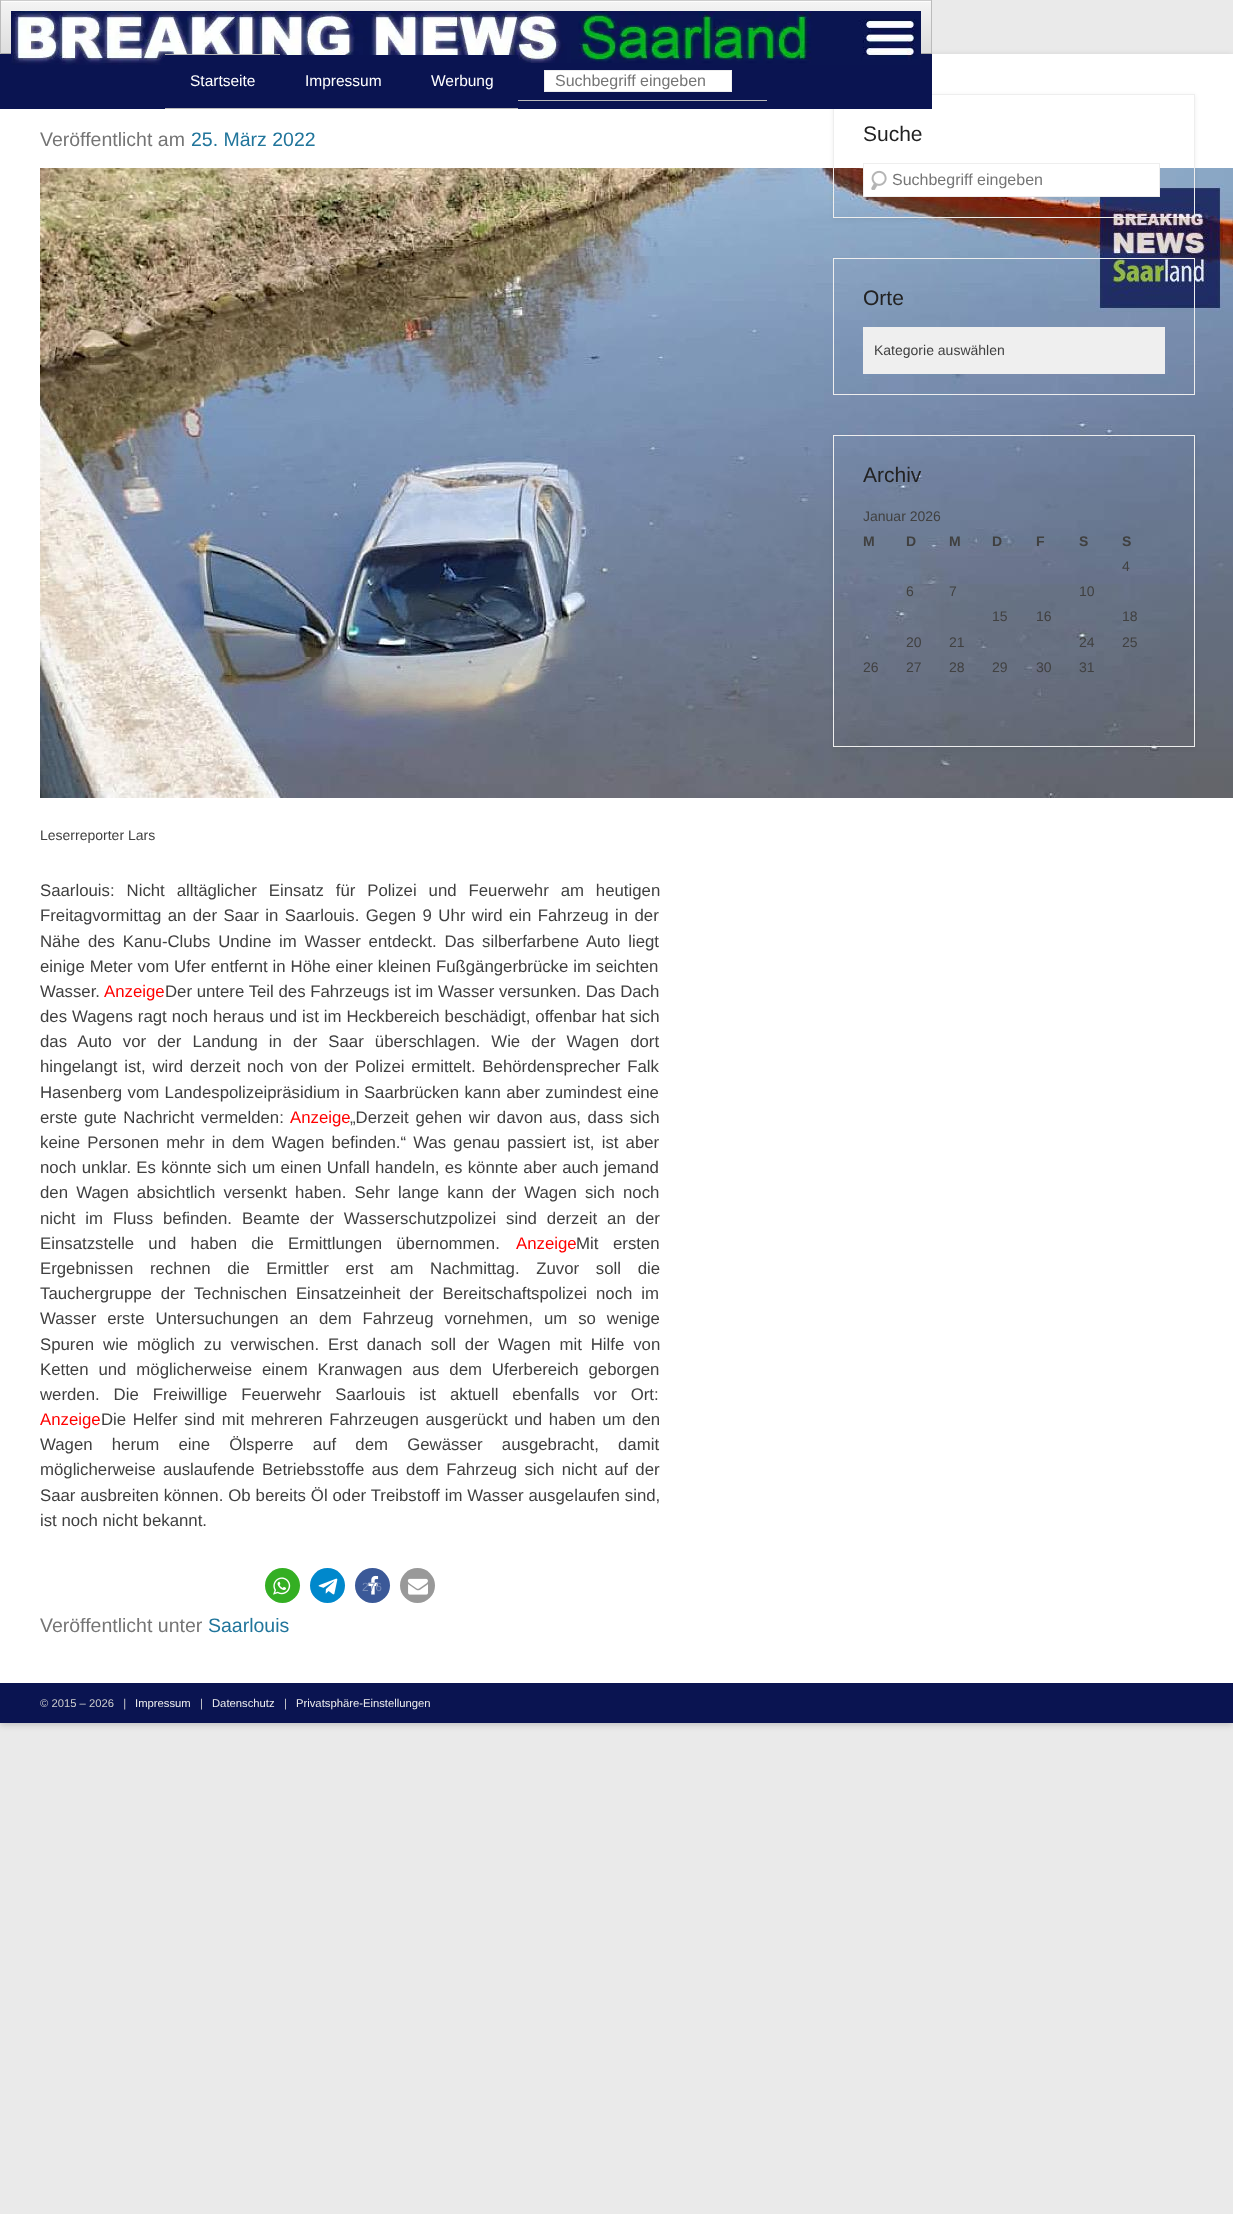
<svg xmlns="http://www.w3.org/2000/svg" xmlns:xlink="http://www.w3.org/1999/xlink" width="1233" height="2214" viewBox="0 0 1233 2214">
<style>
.cls-1{font:15.5px Liberation Sans;fill:#ffffff}
.cls-2{font:16px Liberation Sans;fill:#757575}
.cls-3{font:19.5px Liberation Sans;fill:#757575}
.cls-4{font:19.5px Liberation Sans;fill:#21759b}
.cls-5{font:14px Liberation Sans;fill:#404040}
.cls-6{font:16.8px Liberation Sans;fill:#404040}
.cls-7{font:16.8px Liberation Sans;fill:#ff0000}
.cls-8{font:12px Liberation Sans;fill:#788db8}
.cls-9{font:21px Liberation Sans;fill:#222222}
.cls-10{font:bold 14px Liberation Sans;fill:#404040}
.cls-11{font:11.25px Liberation Sans;fill:#cccccc}
.cls-12{font:11.25px Liberation Sans;fill:#eeeeee}
</style>
<defs>
<clipPath id="clip1"><path d="M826 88H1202V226H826ZM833 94H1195V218H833Z" clip-rule="evenodd"/></clipPath>
<linearGradient id="g1" gradientUnits="userSpaceOnUse" x1="466" y1="1" x2="466" y2="53"><stop offset="0" stop-color="#f4f4f4"/><stop offset="1" stop-color="#dddddd"/></linearGradient>
<clipPath id="clip2"><path d="M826 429H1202V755H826ZM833 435H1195V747H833Z" clip-rule="evenodd"/></clipPath>
</defs>
<rect width="100%" height="100%" fill="#eaeaea"/>
<rect fill="#646464" fill-opacity="0.3" filter="blur(3px)" x="0" y="56" width="1233" height="1669"/>
<rect fill="#ffffff" x="0" y="54" width="1233" height="1629"/>
<image xlink:href="image1.png" x="40" y="168" width="1193" height="630"/>
<g clip-path="url(#clip1)">
<rect fill="#000000" fill-opacity="0.07" filter="blur(2px)" x="833" y="95" width="362" height="124"/>
</g>
<rect fill="none" stroke="#eeeeee" x="833.5" y="94.5" width="361" height="123"/>
<rect fill="#0a1451" x="0" y="54" width="932" height="55"/>
<rect fill="url(#g1)" x="1" y="2" width="930" height="51"/>
<rect fill="#fdfdfd" x="1" y="1" width="930" height="1"/>
<rect fill="#cccccc" x="0" y="0" width="932" height="1"/>
<rect fill="#bbbbbb" x="931" y="0" width="1" height="54"/>
<rect fill="#aaaaaa" x="0" y="53" width="932" height="1"/>
<rect fill="#bbbbbb" x="0" y="0" width="1" height="54"/>
<image xlink:href="image0.png" x="11" y="11" width="910" height="54"/>
<rect fill="#bbbbbb" x="165" y="54" width="115" height="1"/>
<rect fill="#bbbbbb" x="165" y="108" width="353" height="1"/>
<rect fill="#0a1451" x="165" y="55" width="353" height="10"/>
<rect fill="#0a1451" x="525" y="63" width="142" height="2"/>
<rect fill="#bbbbbb" x="518" y="100" width="249" height="1"/>
<rect fill="#ffffff" stroke="#eeeeee" x="544.5" y="70.5" width="187" height="21"/>
<circle fill="#34af23" cx="282.5" cy="1585.5" r="17.5"/>
<image xlink:href="image2.png" x="273" y="1577" width="18" height="18"/>
<circle fill="#0088cc" cx="327.5" cy="1585.5" r="17.5"/>
<image xlink:href="image3.png" x="318" y="1578" width="20" height="17"/>
<circle fill="#3b5998" cx="372.5" cy="1585.5" r="17.5"/>
<image xlink:href="image4.png" x="368" y="1575" width="11" height="20"/>
<circle fill="#999999" cx="417.5" cy="1585.5" r="17.5"/>
<image xlink:href="image5.png" x="407" y="1578" width="21" height="17"/>
<rect fill="#ffffff" x="864" y="168" width="295" height="28"/>
<image xlink:href="image6.png" x="871" y="170" width="16" height="20"/>
<rect fill="none" stroke="#eeeeee" x="863.5" y="163.5" width="296" height="33"/>
<rect fill="none" stroke="#eeeeee" x="833.5" y="258.5" width="361" height="136"/>
<rect fill="#efefef" x="863" y="327" width="302" height="47"/>
<g clip-path="url(#clip2)">
<rect fill="#000000" fill-opacity="0.07" filter="blur(2px)" x="833" y="436" width="362" height="312"/>
</g>
<rect fill="none" stroke="#eeeeee" x="833.5" y="435.5" width="361" height="311"/>
<rect fill="#0a1451" x="0" y="1683" width="1233" height="40"/>
<text class="cls-1" x="190" y="86">Startseite</text>
<text class="cls-1" x="305" y="86">Impressum</text>
<text class="cls-1" x="431" y="86">Werbung</text>
<text class="cls-2" x="555" y="86">Suchbegriff eingeben</text>
<text class="cls-3" x="40" y="146">Veröffentlicht am</text>
<text class="cls-4" x="191" y="146">25. März 2022</text>
<text class="cls-5" x="40" y="840">Leserreporter Lars</text>
<text class="cls-6"><tspan x="40" y="896" word-spacing="7.25">Saarlouis: Nicht alltäglicher Einsatz für Polizei und Feuerwehr am heutigen</tspan><tspan x="40" y="921" word-spacing="1.75">Freitagvormittag an der Saar in Saarlouis. Gegen 9 Uhr wird ein Fahrzeug in der</tspan><tspan x="40" y="947" word-spacing="3.1">Nähe des Kanu-Clubs Undine im Wasser entdeckt. Das silberfarbene Auto liegt</tspan><tspan x="40" y="972" word-spacing="0.25">einige Meter vom Ufer entfernt in Höhe einer kleinen Fußgängerbrücke im seichten</tspan><tspan x="40" y="997">Wasser.</tspan></text>
<text class="cls-7" x="104" y="997">Anzeige</text>
<text class="cls-6" x="165" y="997">Der untere Teil des Fahrzeugs ist im Wasser versunken. Das Dach</text>
<text class="cls-6"><tspan x="40" y="1022" word-spacing="0.25">des Wagens ragt noch heraus und ist im Heckbereich beschädigt, offenbar hat sich</tspan><tspan x="40" y="1047" word-spacing="6.4">das Auto vor der Landung in der Saar überschlagen. Wie der Wagen dort</tspan><tspan x="40" y="1072" word-spacing="2.1">hingelangt ist, wird derzeit noch von der Polizei ermittelt. Behördensprecher Falk</tspan><tspan x="40" y="1098" word-spacing="0.75">Hasenberg vom Landespolizeipräsidium in Saarbrücken kann aber zumindest eine</tspan><tspan x="40" y="1123" word-spacing="2">erste gute Nachricht vermelden:</tspan></text>
<text class="cls-7" x="290" y="1123">Anzeige</text>
<text class="cls-6" x="350" y="1123" word-spacing="2">„Derzeit gehen wir davon aus, dass sich</text>
<text class="cls-6"><tspan x="40" y="1148" word-spacing="2.5">keine Personen mehr in dem Wagen befinden.“ Was genau passiert ist, ist aber</tspan><tspan x="40" y="1173" word-spacing="0.6">noch unklar. Es könnte sich um einen Unfall handeln, es könnte aber auch jemand</tspan><tspan x="40" y="1198" word-spacing="3.5">den Wagen absichtlich versenkt haben. Sehr lange kann der Wagen sich noch</tspan><tspan x="40" y="1224" word-spacing="5.25">nicht im Fluss befinden. Beamte der Wasserschutzpolizei sind derzeit an der</tspan><tspan x="40" y="1249" word-spacing="9.5">Einsatzstelle und haben die Ermittlungen übernommen.</tspan></text>
<text class="cls-7" x="516" y="1249">Anzeige</text>
<text class="cls-6" x="576" y="1249" word-spacing="10">Mit ersten</text>
<text class="cls-6"><tspan x="40" y="1274" word-spacing="12">Ergebnissen rechnen die Ermittler erst am Nachmittag. Zuvor soll die</tspan><tspan x="40" y="1299" word-spacing="4.25">Tauchergruppe der Technischen Einsatzeinheit der Bereitschaftspolizei noch im</tspan><tspan x="40" y="1324" word-spacing="6.25">Wasser erste Untersuchungen an dem Fahrzeug vornehmen, um so wenige</tspan><tspan x="40" y="1350" word-spacing="4.25">Spuren wie möglich zu verwischen. Erst danach soll der Wagen mit Hilfe von</tspan><tspan x="40" y="1375" word-spacing="5.25">Ketten und möglicherweise einem Kranwagen aus dem Uferbereich geborgen</tspan><tspan x="40" y="1400" word-spacing="9.25">werden. Die Freiwillige Feuerwehr Saarlouis ist aktuell ebenfalls vor Ort:</tspan></text>
<text class="cls-7" x="40" y="1425">Anzeige</text>
<text class="cls-6" x="101" y="1425" word-spacing="2">Die Helfer sind mit mehreren Fahrzeugen ausgerückt und haben um den</text>
<text class="cls-6"><tspan x="40" y="1450" word-spacing="14.5">Wagen herum eine Ölsperre auf dem Gewässer ausgebracht, damit</tspan><tspan x="40" y="1475" word-spacing="2.75">möglicherweise auslaufende Betriebsstoffe aus dem Fahrzeug sich nicht auf der</tspan><tspan x="40" y="1501" word-spacing="0.25">Saar ausbreiten können. Ob bereits Öl oder Treibstoff im Wasser ausgelaufen sind,</tspan><tspan x="40" y="1526">ist noch nicht bekannt.</tspan></text>
<text class="cls-8" x="362" y="1591">276</text>
<text class="cls-3" x="40" y="1632">Veröffentlicht unter</text>
<text class="cls-4" x="208" y="1632">Saarlouis</text>
<text class="cls-9" x="863" y="141">Suche</text>
<text class="cls-2" x="892" y="185">Suchbegriff eingeben</text>
<text class="cls-9" x="863" y="305">Orte</text>
<text class="cls-5" x="874" y="355">Kategorie auswählen</text>
<text class="cls-9" x="863" y="482">Archiv</text>
<text class="cls-5" x="863" y="521">Januar 2026</text>
<text class="cls-10" x="863" y="546">M</text>
<text class="cls-10" x="906" y="546">D</text>
<text class="cls-10" x="949" y="546">M</text>
<text class="cls-10" x="992" y="546">D</text>
<text class="cls-10" x="1036" y="546">F</text>
<text class="cls-10" x="1079" y="546">S</text>
<text class="cls-10" x="1122" y="546">S</text>
<text class="cls-5" x="1122" y="571">4</text>
<text class="cls-5" x="906" y="596">6</text>
<text class="cls-5" x="949" y="596">7</text>
<text class="cls-5" x="1079" y="596">10</text>
<text class="cls-5" x="992" y="621">15</text>
<text class="cls-5" x="1036" y="621">16</text>
<text class="cls-5" x="1122" y="621">18</text>
<text class="cls-5" x="906" y="647">20</text>
<text class="cls-5" x="949" y="647">21</text>
<text class="cls-5" x="1079" y="647">24</text>
<text class="cls-5" x="1122" y="647">25</text>
<text class="cls-5" x="863" y="672">26</text>
<text class="cls-5" x="906" y="672">27</text>
<text class="cls-5" x="949" y="672">28</text>
<text class="cls-5" x="992" y="672">29</text>
<text class="cls-5" x="1036" y="672">30</text>
<text class="cls-5" x="1079" y="672">31</text>
<text class="cls-11" xml:space="preserve" x="40" y="1707">© 2015 – 2026   |</text>
<text class="cls-12" x="135" y="1707">Impressum</text>
<text class="cls-11" x="200" y="1707">|</text>
<text class="cls-12" x="212" y="1707">Datenschutz</text>
<text class="cls-11" x="284" y="1707">|</text>
<text class="cls-12" x="296" y="1707">Privatsphäre-Einstellungen</text>
</svg>
